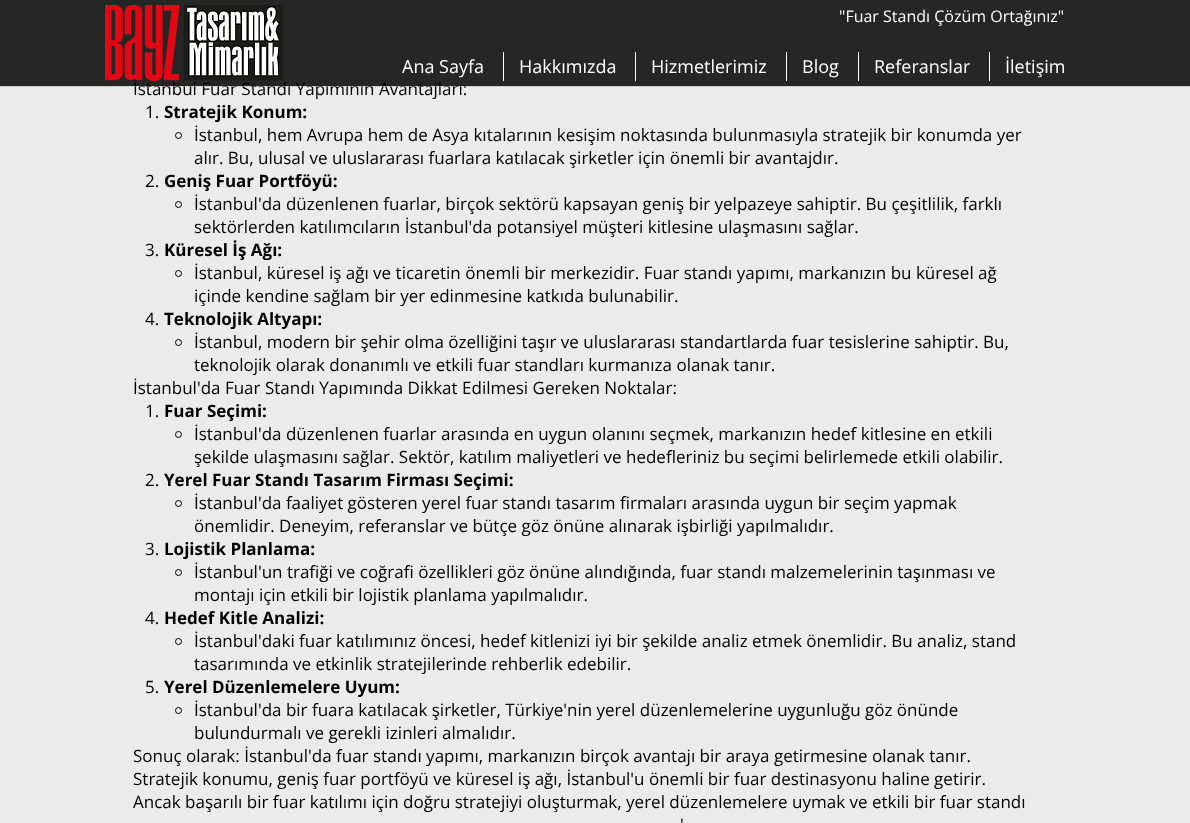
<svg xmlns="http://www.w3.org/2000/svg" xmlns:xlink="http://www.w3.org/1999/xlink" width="1190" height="823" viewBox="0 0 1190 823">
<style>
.cls-1{font:17px Open Sans;fill:#000000}
.cls-2{font:18px Open Sans;fill:#ffffff}
.cls-3{font:16px Open Sans;fill:#ffffff}
.cls-4{font:bold 17px Open Sans;fill:#000000}
</style>
<rect width="100%" height="100%" fill="#ebebeb"/>
<circle fill="none" stroke="#000000" cx="178.5" cy="135.5" r="3"/>
<circle fill="none" stroke="#000000" cx="178.5" cy="204.5" r="3"/>
<circle fill="none" stroke="#000000" cx="178.5" cy="273.5" r="3"/>
<circle fill="none" stroke="#000000" cx="178.5" cy="342.5" r="3"/>
<circle fill="none" stroke="#000000" cx="178.5" cy="434.5" r="3"/>
<circle fill="none" stroke="#000000" cx="178.5" cy="503.5" r="3"/>
<circle fill="none" stroke="#000000" cx="178.5" cy="572.5" r="3"/>
<circle fill="none" stroke="#000000" cx="178.5" cy="641.5" r="3"/>
<circle fill="none" stroke="#000000" cx="178.5" cy="710.5" r="3"/>
<text class="cls-1" x="133" y="95">İstanbul Fuar Standı Yapımının Avantajları:</text>
<rect fill="#000000" fill-opacity="0.84" x="0" y="0" width="1190" height="86"/>
<text class="cls-2" x="1005" y="73">İletişim</text>
<rect fill="#f8f8f8" x="989" y="52" width="1" height="29"/>
<text class="cls-2" x="874" y="73">Referanslar</text>
<rect fill="#f8f8f8" x="858" y="52" width="1" height="29"/>
<text class="cls-2" x="802" y="73">Blog</text>
<rect fill="#f8f8f8" x="786" y="52" width="1" height="29"/>
<text class="cls-2" x="651" y="73">Hizmetlerimiz</text>
<rect fill="#f8f8f8" x="635" y="52" width="1" height="29"/>
<text class="cls-2" x="519" y="73">Hakkımızda</text>
<rect fill="#f8f8f8" x="503" y="52" width="1" height="29"/>
<text class="cls-2" x="402" y="73">Ana Sayfa</text>
<text class="cls-3" x="839" y="22">"Fuar Standı Çözüm Ortağınız"</text>
<image xlink:href="image0.png" x="105" y="5" width="178" height="76"/>
<rect fill="#b5b1a9" fill-opacity="0.5" x="0" y="86" width="1190" height="1"/>
<text class="cls-1" x="145" y="118">1.</text>
<text class="cls-4" x="164" y="118">Stratejik Konum:</text>
<text class="cls-1"><tspan x="194" y="141">İstanbul, hem Avrupa hem de Asya kıtalarının kesişim noktasında bulunmasıyla stratejik bir konumda yer</tspan><tspan x="194" y="164">alır. Bu, ulusal ve uluslararası fuarlara katılacak şirketler için önemli bir avantajdır.</tspan></text>
<text class="cls-1" x="145" y="187">2.</text>
<text class="cls-4" x="164" y="187">Geniş Fuar Portföyü:</text>
<text class="cls-1"><tspan x="194" y="210">İstanbul'da düzenlenen fuarlar, birçok sektörü kapsayan geniş bir yelpazeye sahiptir. Bu çeşitlilik, farklı</tspan><tspan x="194" y="233">sektörlerden katılımcıların İstanbul'da potansiyel müşteri kitlesine ulaşmasını sağlar.</tspan></text>
<text class="cls-1" x="145" y="256">3.</text>
<text class="cls-4" x="164" y="256">Küresel İş Ağı:</text>
<text class="cls-1"><tspan x="194" y="279">İstanbul, küresel iş ağı ve ticaretin önemli bir merkezidir. Fuar standı yapımı, markanızın bu küresel ağ</tspan><tspan x="194" y="302">içinde kendine sağlam bir yer edinmesine katkıda bulunabilir.</tspan></text>
<text class="cls-1" x="145" y="325">4.</text>
<text class="cls-4" x="164" y="325">Teknolojik Altyapı:</text>
<text class="cls-1"><tspan x="194" y="348">İstanbul, modern bir şehir olma özelliğini taşır ve uluslararası standartlarda fuar tesislerine sahiptir. Bu,</tspan><tspan x="194" y="371">teknolojik olarak donanımlı ve etkili fuar standları kurmanıza olanak tanır.</tspan></text>
<text class="cls-1" x="133" y="394">İstanbul'da Fuar Standı Yapımında Dikkat Edilmesi Gereken Noktalar:</text>
<text class="cls-1" x="145" y="417">1.</text>
<text class="cls-4" x="164" y="417">Fuar Seçimi:</text>
<text class="cls-1"><tspan x="194" y="440">İstanbul'da düzenlenen fuarlar arasında en uygun olanını seçmek, markanızın hedef kitlesine en etkili</tspan><tspan x="194" y="463">şekilde ulaşmasını sağlar. Sektör, katılım maliyetleri ve hedefleriniz bu seçimi belirlemede etkili olabilir.</tspan></text>
<text class="cls-1" x="145" y="486">2.</text>
<text class="cls-4" x="164" y="486">Yerel Fuar Standı Tasarım Firması Seçimi:</text>
<text class="cls-1"><tspan x="194" y="509">İstanbul'da faaliyet gösteren yerel fuar standı tasarım firmaları arasında uygun bir seçim yapmak</tspan><tspan x="194" y="532">önemlidir. Deneyim, referanslar ve bütçe göz önüne alınarak işbirliği yapılmalıdır.</tspan></text>
<text class="cls-1" x="145" y="555">3.</text>
<text class="cls-4" x="164" y="555">Lojistik Planlama:</text>
<text class="cls-1"><tspan x="194" y="578">İstanbul'un trafiği ve coğrafi özellikleri göz önüne alındığında, fuar standı malzemelerinin taşınması ve</tspan><tspan x="194" y="601">montajı için etkili bir lojistik planlama yapılmalıdır.</tspan></text>
<text class="cls-1" x="145" y="624">4.</text>
<text class="cls-4" x="164" y="624">Hedef Kitle Analizi:</text>
<text class="cls-1"><tspan x="194" y="647">İstanbul'daki fuar katılımınız öncesi, hedef kitlenizi iyi bir şekilde analiz etmek önemlidir. Bu analiz, stand</tspan><tspan x="194" y="670">tasarımında ve etkinlik stratejilerinde rehberlik edebilir.</tspan></text>
<text class="cls-1" x="145" y="693">5.</text>
<text class="cls-4" x="164" y="693">Yerel Düzenlemelere Uyum:</text>
<text class="cls-1"><tspan x="194" y="716">İstanbul'da bir fuara katılacak şirketler, Türkiye'nin yerel düzenlemelerine uygunluğu göz önünde</tspan><tspan x="194" y="739">bulundurmalı ve gerekli izinleri almalıdır.</tspan></text>
<text class="cls-1"><tspan x="133" y="762">Sonuç olarak: İstanbul'da fuar standı yapımı, markanızın birçok avantajı bir araya getirmesine olanak tanır.</tspan><tspan x="133" y="785">Stratejik konumu, geniş fuar portföyü ve küresel iş ağı, İstanbul'u önemli bir fuar destinasyonu haline getirir.</tspan><tspan x="133" y="808">Ancak başarılı bir fuar katılımı için doğru stratejiyi oluşturmak, yerel düzenlemelere uymak ve etkili bir fuar standı</tspan></text>
<text class="cls-1" x="680" y="831">'</text>
</svg>
